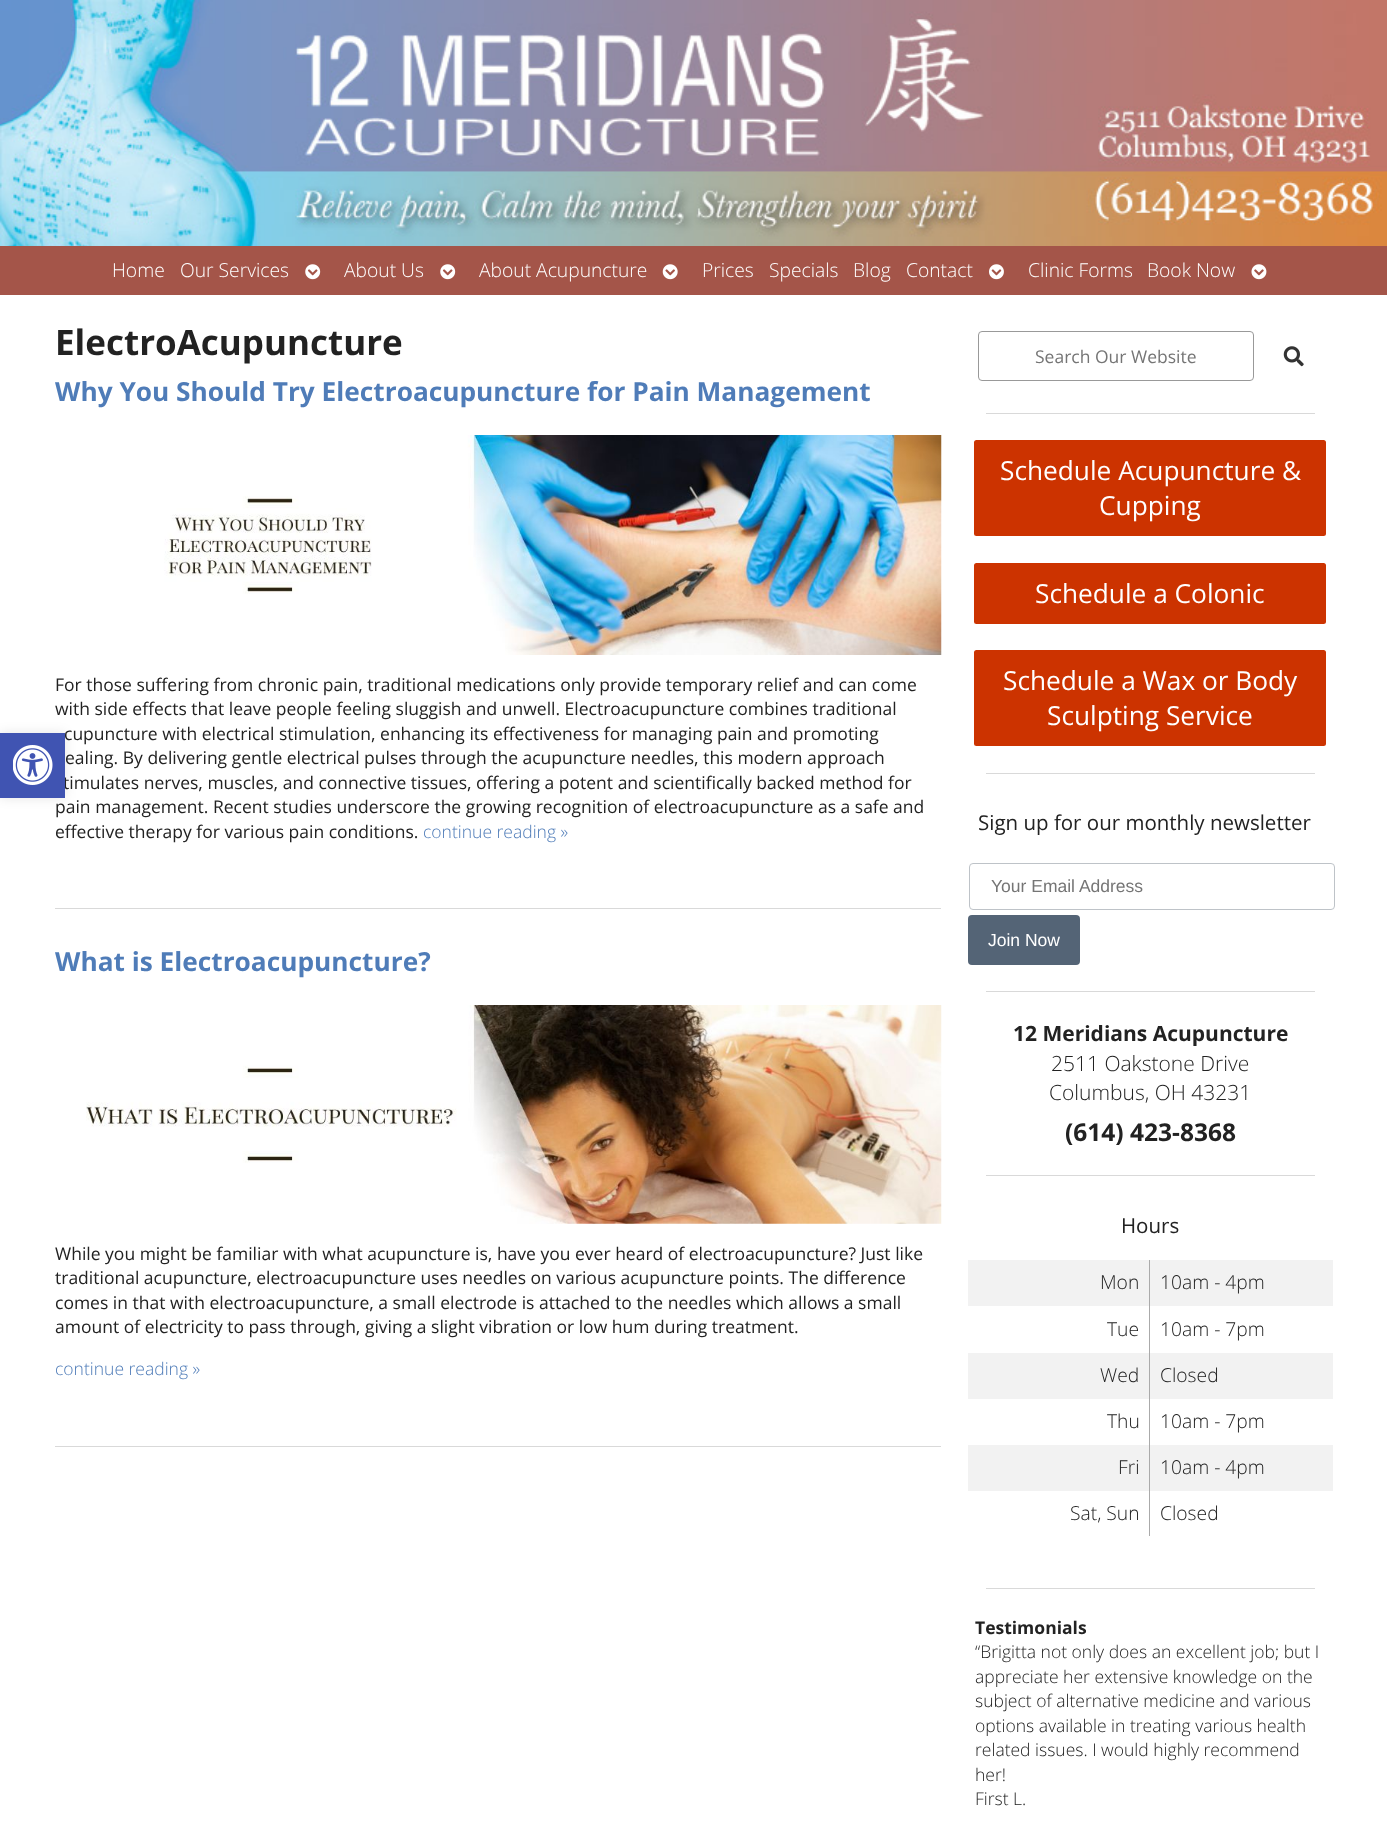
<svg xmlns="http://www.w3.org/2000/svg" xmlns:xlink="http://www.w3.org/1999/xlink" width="1387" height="1830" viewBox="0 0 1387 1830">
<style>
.cls-1{font:300 19.25px Open Sans;fill:#ffffff}
.cls-2{font:bold 35px Open Sans;fill:#222222}
.cls-3{font:bold 26.25px Open Sans;fill:#4f7cb8}
.cls-4{font:17.5px Open Sans;fill:#222222}
.cls-5{font:300 17.5px Open Sans;fill:#4f7cb8}
.cls-6{font:17.5px Open Sans;fill:#757575}
.cls-7{font:26.25px Open Sans;fill:#ffffff}
.cls-8{font:20.5px Open Sans;fill:#222222}
.cls-9{font:17.5px Liberation Sans;fill:#757575}
.cls-10{font:17.5px Liberation Sans;fill:#ffffff}
.cls-11{font:bold 21px Open Sans;fill:#222222}
.cls-12{font:300 21px Open Sans;fill:#222222}
.cls-13{font:bold 24.5px Open Sans;fill:#222222}
.cls-14{font:300 19.25px Open Sans;fill:#222222}
.cls-15{font:bold 17.5px Open Sans;fill:#222222}
.cls-16{font:300 17.5px Open Sans;fill:#222222}
</style>
<rect width="100%" height="100%" fill="#ffffff"/>
<rect fill="#000000" fill-opacity="0.1" filter="blur(6px)" x="0" y="733" width="65" height="65"/>
<image xlink:href="image1.png" x="0" y="0" width="1387" height="246"/>
<rect fill="#a45549" x="0" y="246" width="1387" height="49"/>
<image xlink:href="image2.png" x="305" y="264" width="16" height="16"/>
<image xlink:href="image2.png" x="440" y="264" width="16" height="16"/>
<image xlink:href="image3.png" x="662" y="264" width="16" height="16"/>
<image xlink:href="image4.png" x="989" y="264" width="15" height="16"/>
<image xlink:href="image5.png" x="1251" y="264" width="16" height="16"/>
<rect fill="#d9d9d9" x="55" y="908" width="886" height="1"/>
<image xlink:href="image6.png" x="164" y="435" width="778" height="220"/>
<rect fill="#d9d9d9" x="55" y="1446" width="886" height="1"/>
<image xlink:href="image7.png" x="86" y="1005" width="856" height="219"/>
<rect fill="none" stroke="#999999" x="978.5" y="331.5" width="275" height="49" rx="3.5"/>
<image xlink:href="image8.png" x="1283" y="346" width="21" height="21"/>
<rect fill="#d9d9d9" x="986" y="413" width="329" height="1"/>
<rect fill="#cc3300" x="974" y="440" width="352" height="96" rx="2.5"/>
<rect fill="#cc3300" x="974" y="563" width="352" height="61" rx="2.5"/>
<rect fill="#cc3300" x="974" y="650" width="352" height="96" rx="2.5"/>
<rect fill="#d9d9d9" x="986" y="773" width="329" height="1"/>
<rect fill="none" stroke="#bec3c8" x="969.5" y="863.5" width="365" height="46" rx="3.5"/>
<rect fill="#546476" x="968" y="915" width="112" height="50" rx="4"/>
<rect fill="#d9d9d9" x="986" y="991" width="329" height="1"/>
<rect fill="#d9d9d9" x="986" y="1175" width="329" height="1"/>
<rect fill="#f2f2f2" x="968" y="1260" width="365" height="46"/>
<rect fill="#f2f2f2" x="968" y="1353" width="365" height="46"/>
<rect fill="#f2f2f2" x="968" y="1445" width="365" height="46"/>
<rect fill="#aaaaaa" x="1149" y="1260" width="1" height="276"/>
<rect fill="#d9d9d9" x="986" y="1588" width="329" height="1"/>
<text class="cls-1" x="112" y="277">Home</text>
<text class="cls-1" x="180" y="277">Our Services</text>
<text class="cls-1" x="344" y="277">About Us</text>
<text class="cls-1" x="479" y="277">About Acupuncture</text>
<text class="cls-1" x="702" y="277">Prices</text>
<text class="cls-1" x="769" y="277">Specials</text>
<text class="cls-1" x="853" y="277">Blog</text>
<text class="cls-1" x="906" y="277">Contact</text>
<text class="cls-1" x="1028" y="277">Clinic Forms</text>
<text class="cls-1" x="1147" y="277">Book Now</text>
<text class="cls-2" x="55" y="355">ElectroAcupuncture</text>
<text class="cls-3" x="55" y="401">Why You Should Try Electroacupuncture for Pain Management</text>
<text class="cls-4"><tspan x="55" y="691">For those suffering from chronic pain, traditional medications only provide temporary relief and can come</tspan><tspan x="55" y="715">with side effects that leave people feeling sluggish and unwell. Electroacupuncture combines traditional</tspan></text>
<text class="cls-4" x="64" y="740">cupuncture with electrical stimulation, enhancing its effectiveness for managing pain and promoting</text>
<text class="cls-4" x="65" y="764">ealing. By delivering gentle electrical pulses through the acupuncture needles, this modern approach</text>
<text class="cls-4" x="63" y="789">timulates nerves, muscles, and connective tissues, offering a potent and scientifically backed method for</text>
<rect fill="#4054b2" x="0" y="733" width="65" height="65"/>
<image xlink:href="image0.png" x="13" y="745" width="40" height="40"/>
<text class="cls-4"><tspan x="55" y="813">pain management. Recent studies underscore the growing recognition of electroacupuncture as a safe and</tspan><tspan x="55" y="838">effective therapy for various pain conditions.</tspan></text>
<text class="cls-5" x="423" y="838">continue reading »</text>
<text class="cls-3" x="55" y="971">What is Electroacupuncture?</text>
<text class="cls-4"><tspan x="55" y="1260">While you might be familiar with what acupuncture is, have you ever heard of electroacupuncture? Just like</tspan><tspan x="55" y="1284">traditional acupuncture, electroacupuncture uses needles on various acupuncture points. The difference</tspan><tspan x="55" y="1309">comes in that with electroacupuncture, a small electrode is attached to the needles which allows a small</tspan><tspan x="55" y="1333">amount of electricity to pass through, giving a slight vibration or low hum during treatment.</tspan></text>
<text class="cls-5" x="55" y="1375">continue reading »</text>
<text class="cls-6" x="1035" y="363">Search Our Website</text>
<text class="cls-7" x="1000" y="480">Schedule Acupuncture &amp;</text>
<text class="cls-7" x="1099" y="515">Cupping</text>
<text class="cls-7" x="1035" y="603">Schedule a Colonic</text>
<text class="cls-7" x="1003" y="690">Schedule a Wax or Body</text>
<text class="cls-7" x="1047" y="725">Sculpting Service</text>
<text class="cls-8" x="978" y="830">Sign up for our monthly newsletter</text>
<text class="cls-9" x="991" y="892">Your Email Address</text>
<text class="cls-10" x="988" y="946">Join Now</text>
<text class="cls-11" x="1013" y="1041">12 Meridians Acupuncture</text>
<text class="cls-12" x="1051" y="1071">2511 Oakstone Drive</text>
<text class="cls-12" x="1049" y="1100">Columbus, OH 43231</text>
<text class="cls-13" x="1065" y="1141">(614) 423-8368</text>
<text class="cls-8" x="1121" y="1233">Hours</text>
<text class="cls-14" x="1100" y="1289">Mon</text>
<text class="cls-14" x="1160" y="1289">10am - 4pm</text>
<text class="cls-14" x="1107" y="1336">Tue</text>
<text class="cls-14" x="1160" y="1336">10am - 7pm</text>
<text class="cls-14" x="1100" y="1382">Wed</text>
<text class="cls-14" x="1160" y="1382">Closed</text>
<text class="cls-14" x="1107" y="1428">Thu</text>
<text class="cls-14" x="1160" y="1428">10am - 7pm</text>
<text class="cls-14" x="1118" y="1474">Fri</text>
<text class="cls-14" x="1160" y="1474">10am - 4pm</text>
<text class="cls-14" x="1070" y="1520">Sat, Sun</text>
<text class="cls-14" x="1160" y="1520">Closed</text>
<text class="cls-15" x="975" y="1634">Testimonials</text>
<text class="cls-16"><tspan x="975" y="1658">“Brigitta not only does an excellent job; but I</tspan><tspan x="975" y="1683">appreciate her extensive knowledge on the</tspan><tspan x="975" y="1707">subject of alternative medicine and various</tspan><tspan x="975" y="1732">options available in treating various health</tspan><tspan x="975" y="1756">related issues. I would highly recommend</tspan><tspan x="975" y="1781">her!</tspan><tspan x="975" y="1805">First L.</tspan></text>
</svg>
